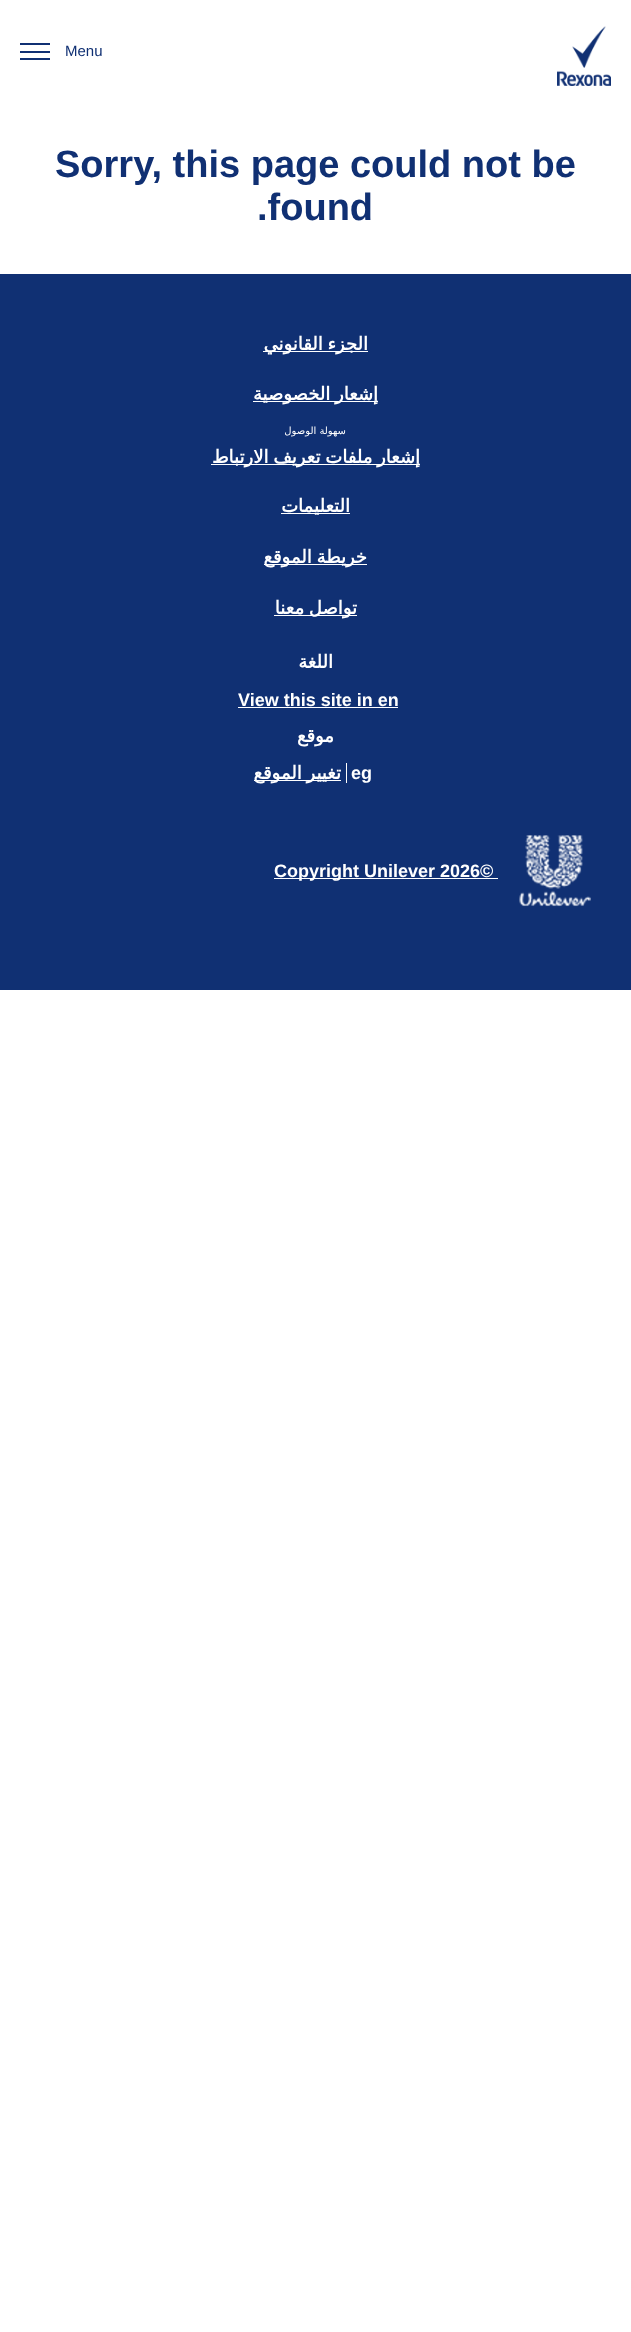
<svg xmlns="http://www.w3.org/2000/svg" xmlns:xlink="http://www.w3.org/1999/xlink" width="631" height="2332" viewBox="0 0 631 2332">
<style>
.cls-1{font:15px Liberation Sans;fill:#103073}
.cls-2{font:bold 38px Liberation Sans;fill:#103073}
.cls-3{font:bold 18px DejaVu Sans;direction:rtl;fill:#ffffff}
.cls-4{font:10px DejaVu Sans;direction:rtl;fill:#ffffff}
.cls-5{font:bold 18px Liberation Sans;fill:#ffffff}
</style>
<rect width="100%" height="100%" fill="#ffffff"/>
<image xlink:href="image0.png" x="557" y="26" width="54" height="60"/>
<rect fill="#103073" x="20" y="43" width="30" height="2"/>
<rect fill="#103073" x="20" y="51" width="30" height="2"/>
<rect fill="#103073" x="20" y="58" width="30" height="2"/>
<rect fill="#103073" x="0" y="274" width="631" height="716"/>
<rect fill="#ffffff" x="263" y="351" width="105" height="1"/>
<rect fill="#ffffff" x="253" y="401" width="125" height="1"/>
<rect fill="#ffffff" x="211" y="464" width="209" height="1"/>
<rect fill="#ffffff" x="281" y="513" width="69" height="1"/>
<rect fill="#ffffff" x="264" y="564" width="103" height="1"/>
<rect fill="#ffffff" x="274" y="615" width="83" height="1"/>
<rect fill="#ffffff" x="238" y="707" width="160" height="1"/>
<rect fill="#ffffff" x="346" y="763" width="1" height="20"/>
<rect fill="#ffffff" x="254" y="780" width="87" height="1"/>
<image xlink:href="image1.png" x="519" y="835" width="72" height="72"/>
<rect fill="#ffffff" x="274" y="878" width="224" height="1"/>
<text class="cls-1" x="65" y="56">Menu</text>
<text class="cls-2" x="55" y="177">Sorry, this page could not be</text>
<text class="cls-2" x="257" y="220">.found</text>
<text class="cls-3" x="368" y="350" word-spacing="-1">الجزء القانوني</text>
<text class="cls-3" x="378" y="400" word-spacing="-1">إشعار الخصوصية</text>
<text class="cls-4" x="346" y="434">سهولة الوصول</text>
<text class="cls-3" x="420" y="463" word-spacing="-1">إشعار ملفات تعريف الارتباط</text>
<text class="cls-3" x="350" y="512">التعليمات</text>
<text class="cls-3" x="367" y="563" word-spacing="-1">خريطة الموقع</text>
<text class="cls-3" x="357" y="614" word-spacing="-1">تواصل معنا</text>
<text class="cls-3" x="333" y="668">اللغة</text>
<text class="cls-5" x="238" y="706">View this site in en</text>
<text class="cls-3" x="334" y="742">موقع</text>
<text class="cls-5" x="351" y="779">eg</text>
<text class="cls-3" x="341" y="779" word-spacing="-1">تغيير الموقع</text>
<text class="cls-5" x="274" y="877">Copyright Unilever 2026©</text>
</svg>
